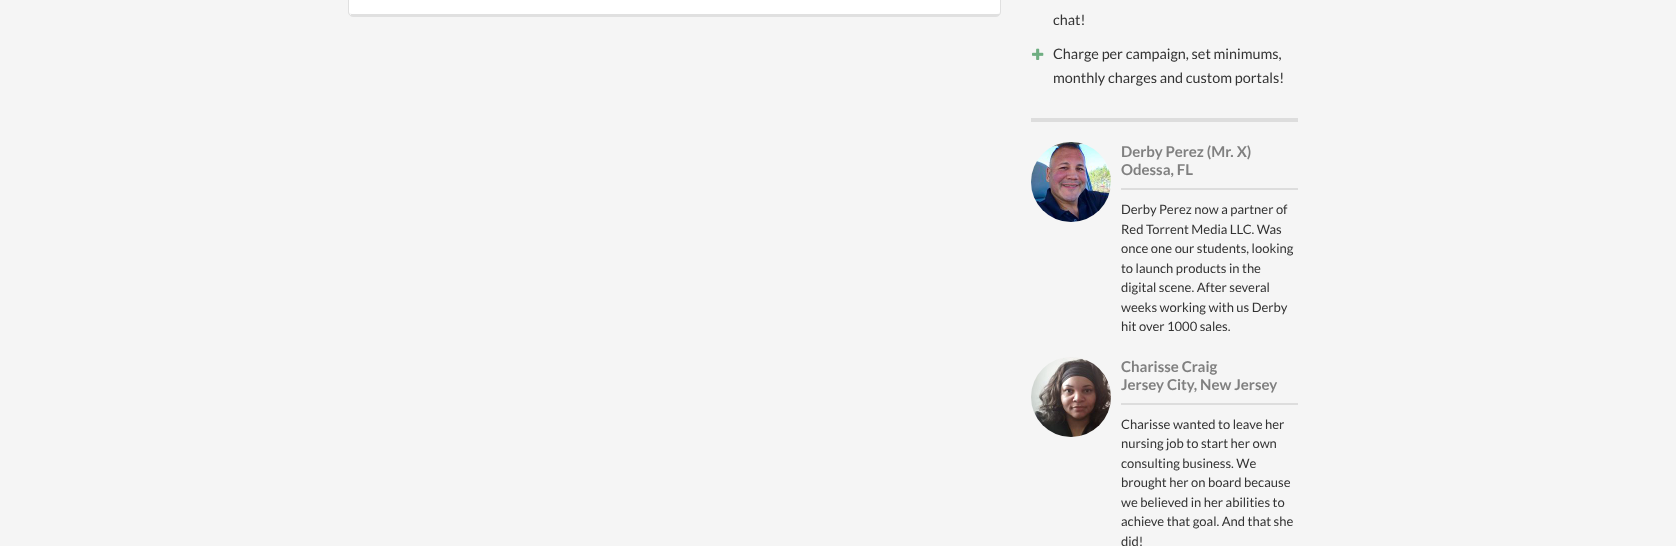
<svg xmlns="http://www.w3.org/2000/svg" xmlns:xlink="http://www.w3.org/1999/xlink" width="1676" height="546" viewBox="0 0 1676 546">
<style>
.cls-1{font:14.4px Lato;fill:#333333}
.cls-2{font:bold 15px Lato;fill:#808080}
.cls-3{font:13px Lato;fill:#333333}
</style>
<rect width="100%" height="100%" fill="#f5f5f5"/>
<path fill="#ffffff" d="M353-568H996C998-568 1000-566 1000-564V12C1000 13 998 14 996 14H353C351 14 349 13 349 12V-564C349-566 351-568 353-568Z"/>
<rect fill="none" stroke="#e0e0e0" x="348.5" y="-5.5" width="652" height="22" rx="4.5"/>
<rect fill="#e0e0e0" x="351" y="14" width="648" height="2"/>
<image xlink:href="image0.png" x="1032" y="48" width="12" height="12"/>
<rect fill="#dddddd" x="1031" y="118" width="267" height="4"/>
<image xlink:href="image1.png" x="1031" y="142" width="80" height="80"/>
<rect fill="#dddddd" x="1121" y="188" width="177" height="2"/>
<image xlink:href="image2.png" x="1031" y="357" width="80" height="80"/>
<rect fill="#dddddd" x="1121" y="403" width="177" height="2"/>
<text class="cls-1" x="1053" y="25">chat!</text>
<text class="cls-1"><tspan x="1053" y="59">Charge per campaign, set minimums,</tspan><tspan x="1053" y="83">monthly charges and custom portals!</tspan></text>
<text class="cls-2"><tspan x="1121" y="157">Derby Perez (Mr. X)</tspan><tspan x="1121" y="175">Odessa, FL</tspan></text>
<text class="cls-3"><tspan x="1121" y="214">Derby Perez now a partner of</tspan><tspan x="1121" y="234">Red Torrent Media LLC. Was</tspan><tspan x="1121" y="253">once one our students, looking</tspan><tspan x="1121" y="273">to launch products in the</tspan><tspan x="1121" y="292">digital scene. After several</tspan><tspan x="1121" y="312">weeks working with us Derby</tspan><tspan x="1121" y="331">hit over 1000 sales.</tspan></text>
<text class="cls-2"><tspan x="1121" y="372">Charisse Craig</tspan><tspan x="1121" y="390">Jersey City, New Jersey</tspan></text>
<text class="cls-3"><tspan x="1121" y="429">Charisse wanted to leave her</tspan><tspan x="1121" y="448">nursing job to start her own</tspan><tspan x="1121" y="468">consulting business. We</tspan><tspan x="1121" y="487">brought her on board because</tspan><tspan x="1121" y="507">we believed in her abilities to</tspan><tspan x="1121" y="526">achieve that goal. And that she</tspan><tspan x="1121" y="546">did!</tspan></text>
</svg>
